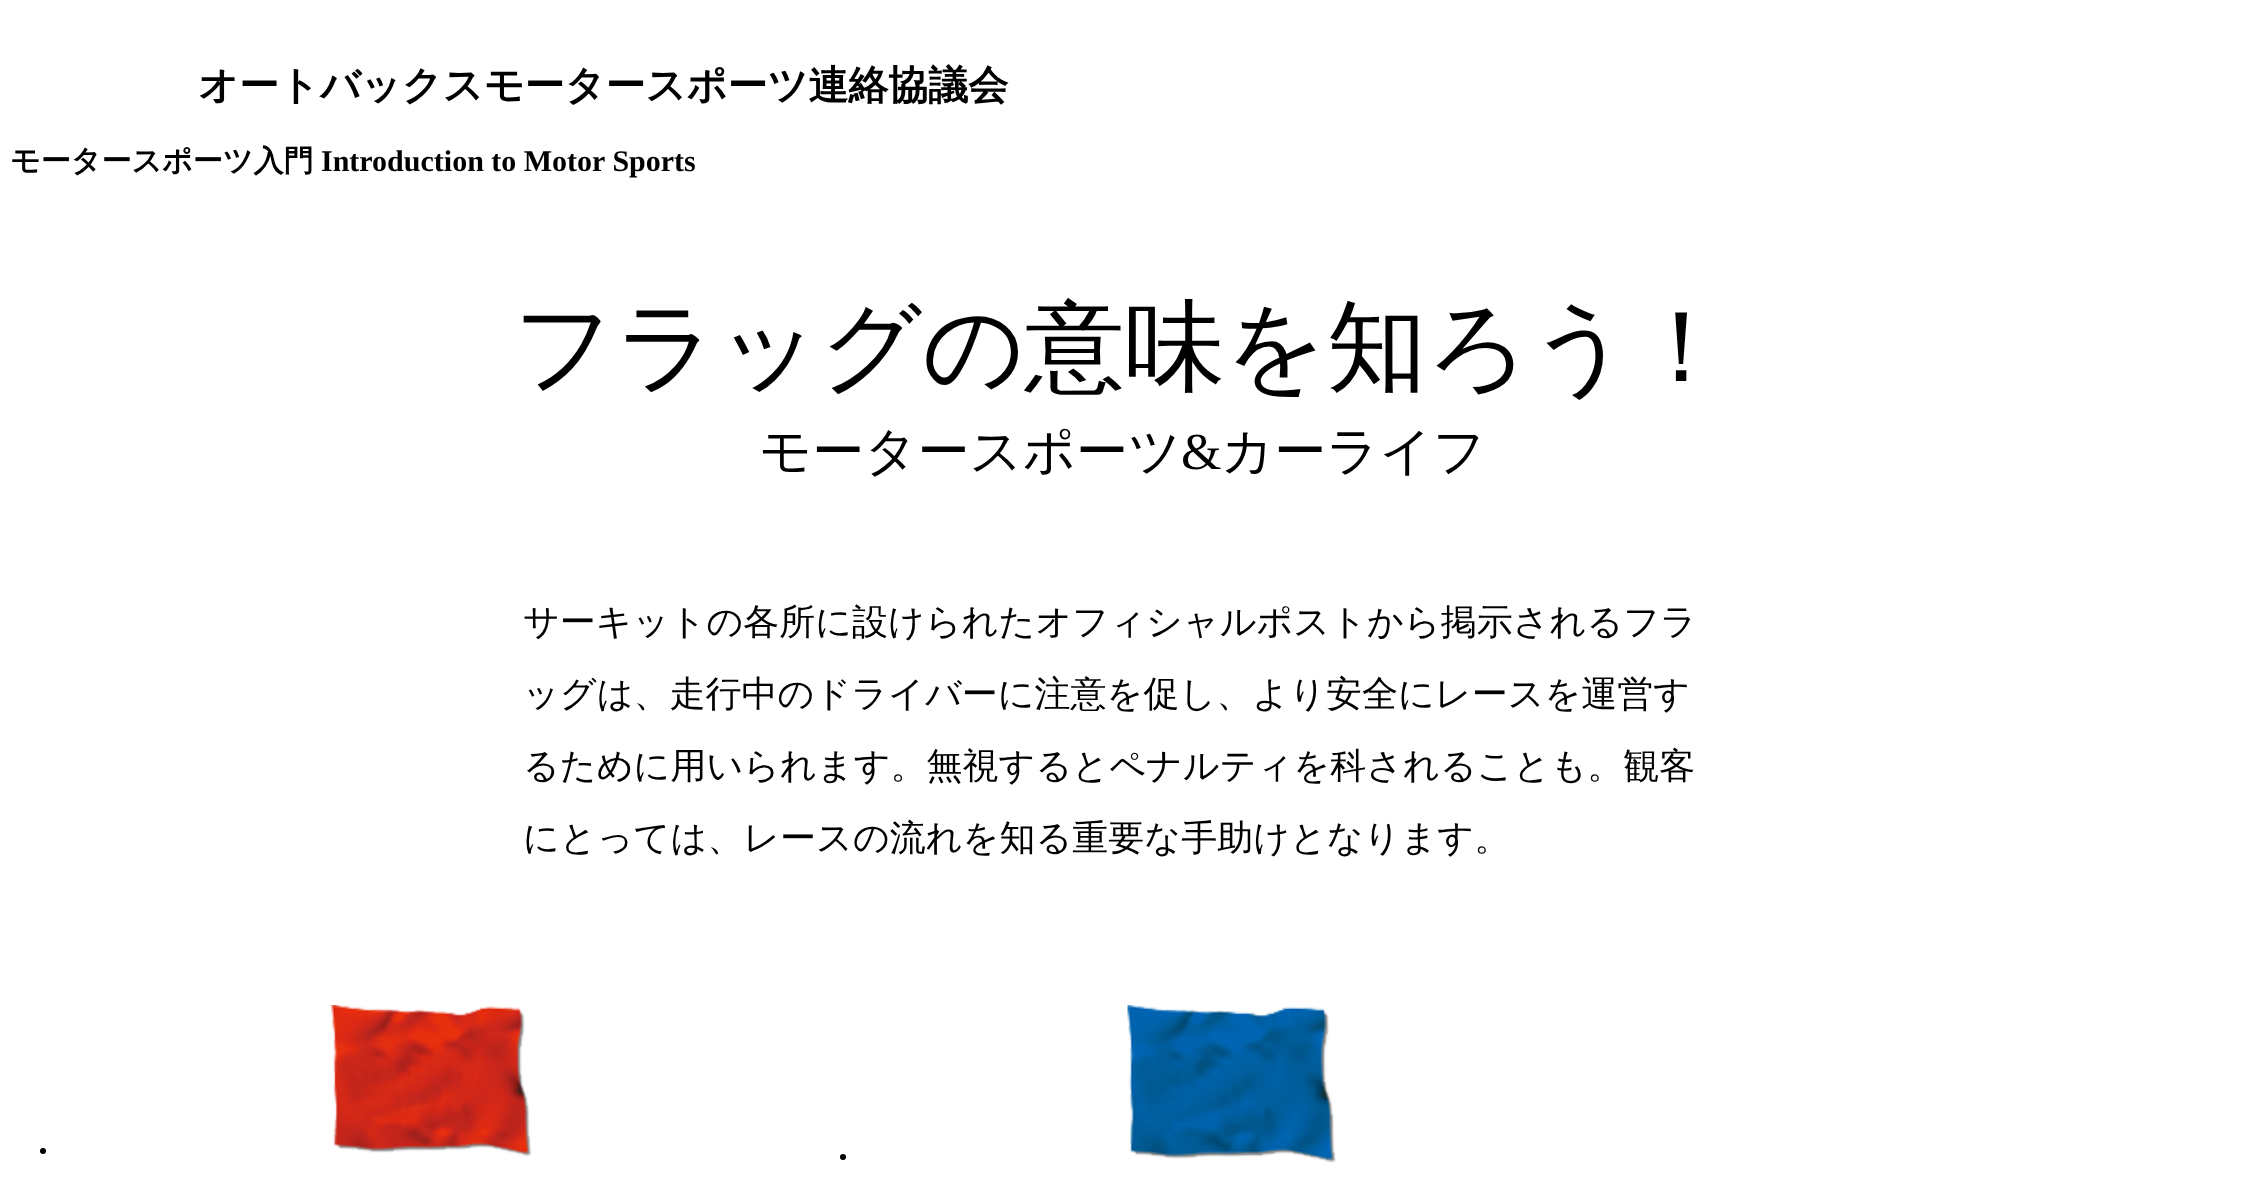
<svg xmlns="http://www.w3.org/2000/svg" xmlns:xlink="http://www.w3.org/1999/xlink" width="2245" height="1201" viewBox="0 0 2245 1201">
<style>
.cls-1{font:bold 40px WenQuanYi Zen Hei;fill:#000000}
.cls-2{font:bold 30px WenQuanYi Zen Hei;fill:#000000}
.cls-3{font:bold 30px Liberation Serif;fill:#000000}
.cls-4{font:500 100px WenQuanYi Zen Hei;fill:#000000}
.cls-5{font:500 52px WenQuanYi Zen Hei;fill:#000000}
.cls-6{font:52px Liberation Serif;fill:#000000}
.cls-7{font:500 36px WenQuanYi Zen Hei;fill:#000000}
</style>
<rect width="100%" height="100%" fill="#ffffff"/>
<circle fill="#000000" cx="43" cy="1151" r="3"/>
<image xlink:href="image0.png" x="331" y="1005" width="201" height="152"/>
<circle fill="#000000" cx="843" cy="1157" r="3"/>
<image xlink:href="image1.png" x="1127" y="1005" width="209" height="158"/>
<text class="cls-1" x="198" y="99">オートバックスモータースポーツ連絡協議会</text>
<text class="cls-2" x="10" y="171">モータースポーツ入門</text>
<text class="cls-3" x="321" y="171">Introduction to Motor Sports</text>
<text class="cls-4" x="513" y="381">フラッグの意味を知ろう！</text>
<text class="cls-5" x="759" y="469">モータースポーツ</text>
<text class="cls-6" x="1181" y="469">&amp;</text>
<text class="cls-5" x="1221" y="469">カーライフ</text>
<text class="cls-7" x="523" y="634">サーキットの各所に設けられたオフィシャルポストから掲示されるフラ</text>
<text class="cls-7" x="523" y="706">ッグは、走行中のドライバーに注意を促し、より安全にレースを運営す</text>
<text class="cls-7" x="523" y="778">るために用いられます。無視するとペナルティを科されることも。観客</text>
<text class="cls-7" x="523" y="850">にとっては、レースの流れを知る重要な手助けとなります。</text>
</svg>
